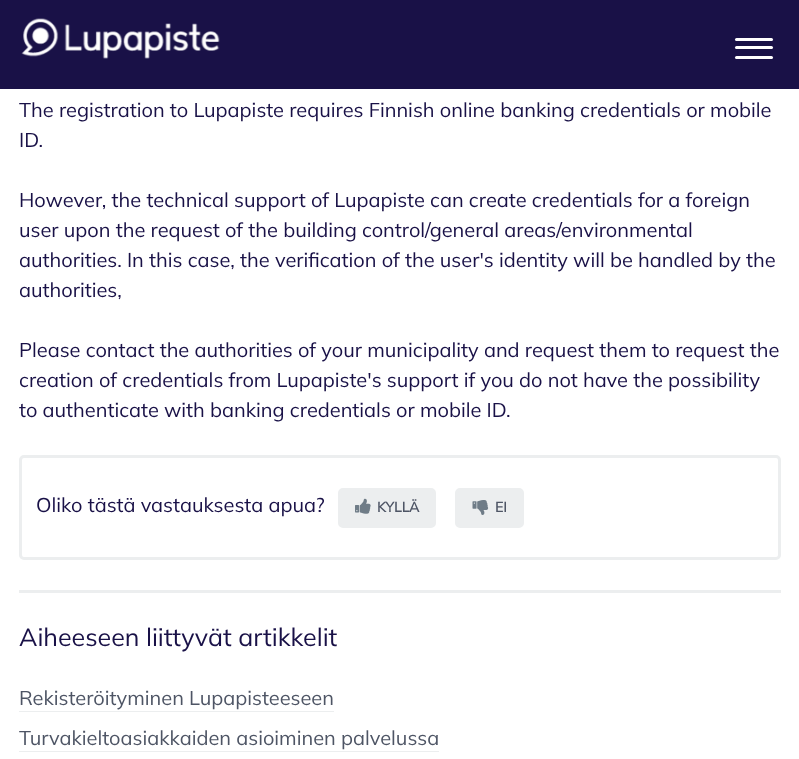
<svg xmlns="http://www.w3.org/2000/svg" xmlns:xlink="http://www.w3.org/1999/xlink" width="799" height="759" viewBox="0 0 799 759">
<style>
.cls-1{font:200 20px Mulish;fill:#191147}
.cls-2{font:bold 14px Mulish;fill:#4e5565}
.cls-3{font:200 25px Mulish;fill:#191147}
.cls-4{font:200 20px Mulish;fill:#4e5565}
</style>
<rect width="100%" height="100%" fill="#ffffff"/>
<rect fill="#191147" x="0" y="0" width="799" height="89"/>
<image xlink:href="image0.png" x="21" y="18" width="199" height="41"/>
<rect fill="#ffffff" x="735" y="46" width="38" height="3" rx="1.5"/>
<rect fill="#ffffff" x="735" y="38" width="38" height="3" rx="1.5"/>
<rect fill="#ffffff" x="735" y="56" width="38" height="3" rx="1.5"/>
<rect fill="none" stroke="#eceeef" stroke-width="3" x="20.5" y="456.5" width="759" height="102" rx="3.5"/>
<rect fill="#eceeef" stroke="#eceeef" stroke-width="3" x="339.5" y="489.5" width="95" height="37" rx="3.5"/>
<image xlink:href="image1.png" x="355" y="498" width="16" height="16"/>
<rect fill="#eceeef" stroke="#eceeef" stroke-width="3" x="456.5" y="489.5" width="66" height="37" rx="3.5"/>
<image xlink:href="image2.png" x="472" y="500" width="17" height="15"/>
<rect fill="#eceeef" x="19" y="590" width="762" height="3"/>
<rect fill="#eceeef" x="19" y="711" width="315" height="1"/>
<rect fill="#eceeef" x="19" y="751" width="420" height="1"/>
<text class="cls-1"><tspan x="19" y="117">The registration to Lupapiste requires Finnish online banking credentials or mobile</tspan><tspan x="19" y="147">ID.</tspan></text>
<text class="cls-1"><tspan x="19" y="207">However, the technical support of Lupapiste can create credentials for a foreign</tspan><tspan x="19" y="237">user upon the request of the building control/general areas/environmental</tspan><tspan x="19" y="267">authorities. In this case, the verification of the user's identity will be handled by the</tspan><tspan x="19" y="297">authorities,</tspan></text>
<text class="cls-1"><tspan x="19" y="357">Please contact the authorities of your municipality and request them to request the</tspan><tspan x="19" y="387">creation of credentials from Lupapiste's support if you do not have the possibility</tspan><tspan x="19" y="417">to authenticate with banking credentials or mobile ID.</tspan></text>
<text class="cls-1" x="36" y="512">Oliko tästä vastauksesta apua?</text>
<text class="cls-2" x="377" y="512">KYLLÄ</text>
<text class="cls-2" x="495" y="512">EI</text>
<text class="cls-3" x="19" y="646">Aiheeseen liittyvät artikkelit</text>
<text class="cls-4" x="19" y="705">Rekisteröityminen Lupapisteeseen</text>
<text class="cls-4" x="19" y="745">Turvakieltoasiakkaiden asioiminen palvelussa</text>
</svg>
